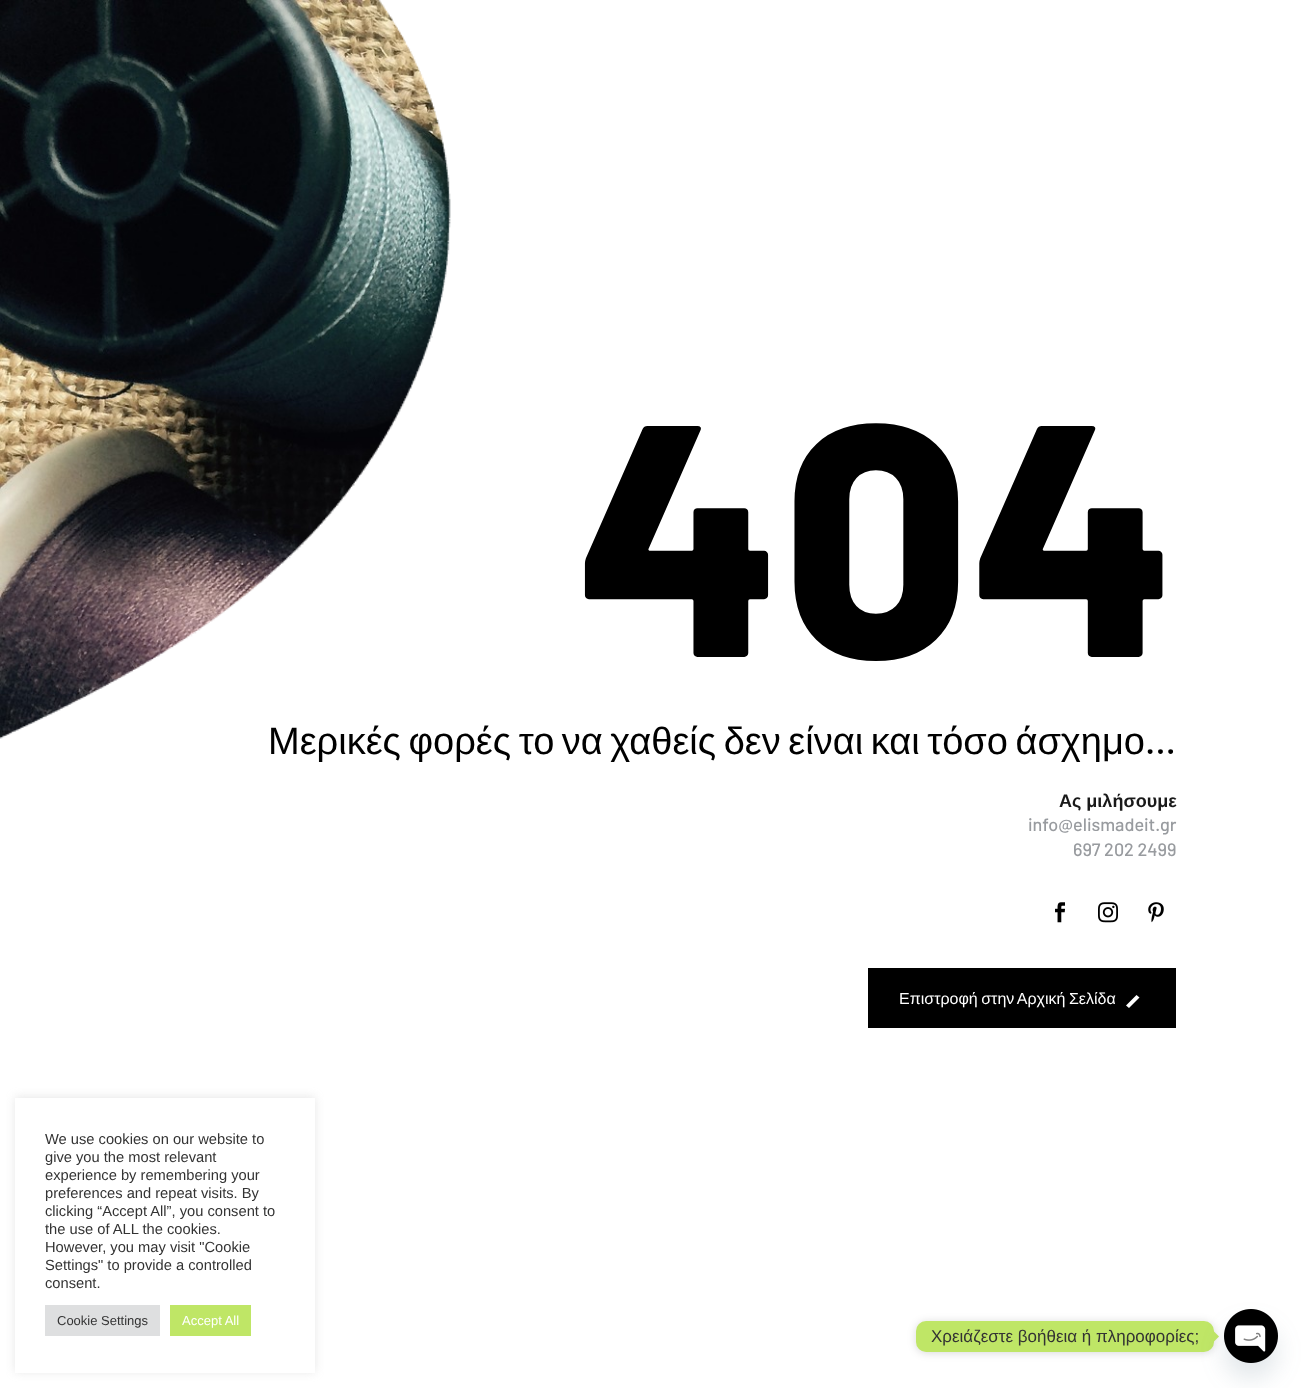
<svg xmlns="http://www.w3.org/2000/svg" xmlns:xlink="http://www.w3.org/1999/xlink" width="1307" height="1388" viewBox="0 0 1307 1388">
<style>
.cls-1{font:800 330px Barlow;fill:#000000}
.cls-2{font:38px Liberation Sans;fill:#000000}
.cls-3{font:500 38px Barlow;fill:#000000}
.cls-4{font:bold 18px Liberation Sans;fill:#191919}
.cls-5{font:500 18px Barlow;fill:#989b9f}
.cls-6{font:16px Liberation Sans;fill:#ffffff}
.cls-7{font:14.7px Liberation Sans;fill:#333333}
.cls-8{font:13px Liberation Sans;fill:#333333}
.cls-9{font:13px Liberation Sans;fill:#ffffff}
.cls-10{font:17px Liberation Sans;fill:#333333}
</style>
<defs>
<clipPath id="clip1"><path d="M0 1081H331V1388H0ZM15 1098H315V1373H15Z" clip-rule="evenodd"/></clipPath>
</defs>
<rect width="100%" height="100%" fill="#ffffff"/>
<image xlink:href="image0.png" x="0" y="0" width="451" height="739"/>
<image xlink:href="image1.png" x="0" y="0" width="1307" height="1388"/>
<image xlink:href="image2.png" x="1055" y="902" width="10" height="21"/>
<image xlink:href="image3.png" x="1098" y="902" width="20" height="21"/>
<image xlink:href="image4.png" x="1148" y="902" width="16" height="21"/>
<rect fill="#000000" x="868" y="968" width="308" height="60"/>
<path fill="#ffffff" d="M1126 1005.5L1136.5 995L1139.5 997.5L1129 1008Z"/>
<g clip-path="url(#clip1)">
<rect fill="#acabab" fill-opacity="0.3" filter="blur(5px)" x="15" y="1097" width="300" height="275"/>
</g>
<rect fill="#dedfe0" x="45" y="1305" width="115" height="31"/>
<rect fill="#bfe666" x="170" y="1305" width="81" height="31"/>
<rect fill="#000000" fill-opacity="0.15" filter="blur(4px)" x="916" y="1322" width="298" height="31" rx="10"/>
<rect fill="#bfe666" x="916" y="1321" width="298" height="31" rx="10"/>
<path fill="#bfe666" d="M1214 1341.5V1331.5L1219 1336.5Z"/>
<rect fill="#49687e" fill-opacity="0.16" filter="blur(12px)" x="1224" y="1325" width="54" height="54" rx="27"/>
<image xlink:href="image5.png" x="1224" y="1309" width="54" height="54"/>
<text class="cls-1" x="576" y="657">404</text>
<text class="cls-2" x="268" y="754" word-spacing="-3">Μερικές φορές το να χαθείς δεν είναι και τόσο άσχημο</text>
<text class="cls-3" x="1145" y="754">…</text>
<text class="cls-4" x="1059" y="807">Ας μιλήσουμε</text>
<text class="cls-5" x="1028" y="831">info@elismadeit.gr</text>
<text class="cls-5" x="1073" y="856">697 202 2499</text>
<text class="cls-6" x="899" y="1004" word-spacing="-1">Επιστροφή στην Αρχική Σελίδα</text>
<text class="cls-7"><tspan x="45" y="1144">We use cookies on our website to</tspan><tspan x="45" y="1162">give you the most relevant</tspan><tspan x="45" y="1180">experience by remembering your</tspan><tspan x="45" y="1198">preferences and repeat visits. By</tspan><tspan x="45" y="1216">clicking “Accept All”, you consent to</tspan><tspan x="45" y="1234">the use of ALL the cookies.</tspan><tspan x="45" y="1252">However, you may visit "Cookie</tspan><tspan x="45" y="1270">Settings" to provide a controlled</tspan><tspan x="45" y="1288">consent.</tspan></text>
<text class="cls-8" x="57" y="1325">Cookie Settings</text>
<text class="cls-9" x="182" y="1325">Accept All</text>
<text class="cls-10" x="931" y="1342">Χρειάζεστε βοήθεια ή πληροφορίες;</text>
</svg>
